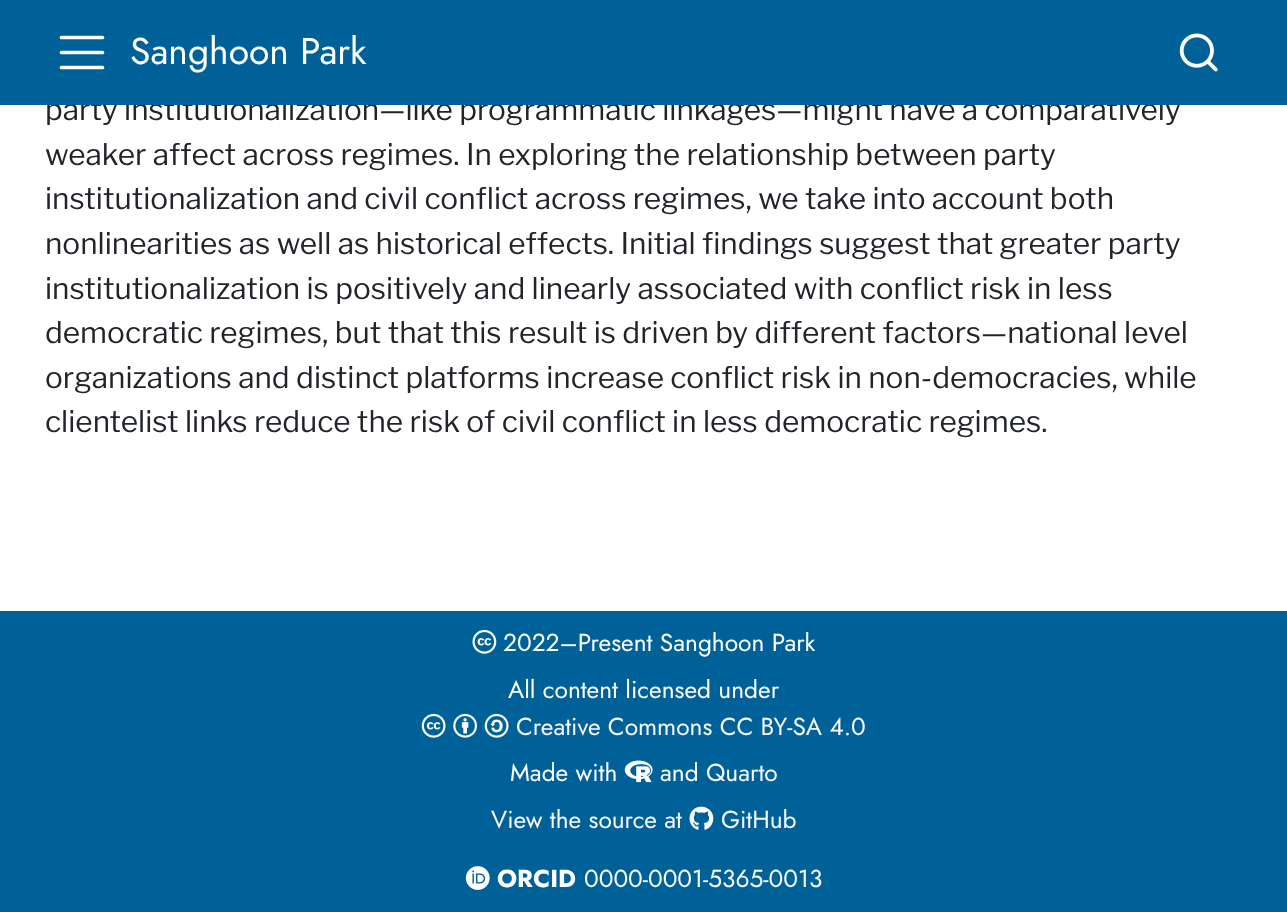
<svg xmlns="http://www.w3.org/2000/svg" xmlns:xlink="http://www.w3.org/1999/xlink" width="1287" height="912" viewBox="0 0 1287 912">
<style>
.cls-1{font:29.75px Libre Franklin;fill:#212529}
.cls-2{font:37.25px Jost;fill:#ffffff}
.cls-3{font:24.5px Jost;fill:#ffffff}
.cls-4{font:24.5px Jost;fill:#f8f9fa}
.cls-5{font:bold 24.5px Jost;fill:#ffffff}
</style>
<rect width="100%" height="100%" fill="#ffffff"/>
<rect fill="#006198" x="0" y="611" width="1287" height="301"/>
<image xlink:href="image1.png" x="472" y="629" width="25" height="25"/>
<image xlink:href="image2.png" x="421" y="713" width="25" height="25"/>
<image xlink:href="image3.png" x="453" y="713" width="24" height="25"/>
<image xlink:href="image4.png" x="484" y="713" width="25" height="25"/>
<image xlink:href="image5.png" x="624" y="760" width="29" height="23"/>
<image xlink:href="image6.png" x="689" y="806" width="25" height="24"/>
<image xlink:href="image7.png" x="465" y="866" width="25" height="24"/>
<text class="cls-1" x="45" y="120">party institutionalization—like programmatic linkages—might have a comparatively</text>
<rect fill="#006198" x="0" y="0" width="1287" height="105"/>
<image xlink:href="image0.png" x="1179" y="33" width="39" height="39"/>
<text class="cls-2" x="130" y="64">Sanghoon Park</text>
<path fill="none" stroke="#ffffff" stroke-width="3.7" stroke-linecap="round" d="M61.5 37.5H102.5M61.5 52.5H102.5M61.5 67.5H102.5"/>
<text class="cls-1"><tspan x="45" y="165">weaker affect across regimes. In exploring the relationship between party</tspan><tspan x="45" y="209">institutionalization and civil conflict across regimes, we take into account both</tspan><tspan x="45" y="254">nonlinearities as well as historical effects. Initial findings suggest that greater party</tspan><tspan x="45" y="299">institutionalization is positively and linearly associated with conflict risk in less</tspan><tspan x="45" y="343">democratic regimes, but that this result is driven by different factors—national level</tspan><tspan x="45" y="388">organizations and distinct platforms increase conflict risk in non-democracies, while</tspan><tspan x="45" y="432">clientelist links reduce the risk of civil conflict in less democratic regimes.</tspan></text>
<text class="cls-3" x="503" y="651">2022–Present Sanghoon Park</text>
<text class="cls-3" x="508" y="698">All content licensed under</text>
<text class="cls-4" x="516" y="735">Creative Commons CC BY-SA 4.0</text>
<text class="cls-3" x="510" y="781">Made with</text>
<text class="cls-3" x="660" y="781">and</text>
<text class="cls-4" x="706" y="781">Quarto</text>
<text class="cls-4" x="491" y="828">View the source at</text>
<text class="cls-4" x="721" y="828">GitHub</text>
<text class="cls-5" x="497" y="887">ORCID</text>
<text class="cls-4" x="584" y="887">0000-0001-5365-0013</text>
</svg>
